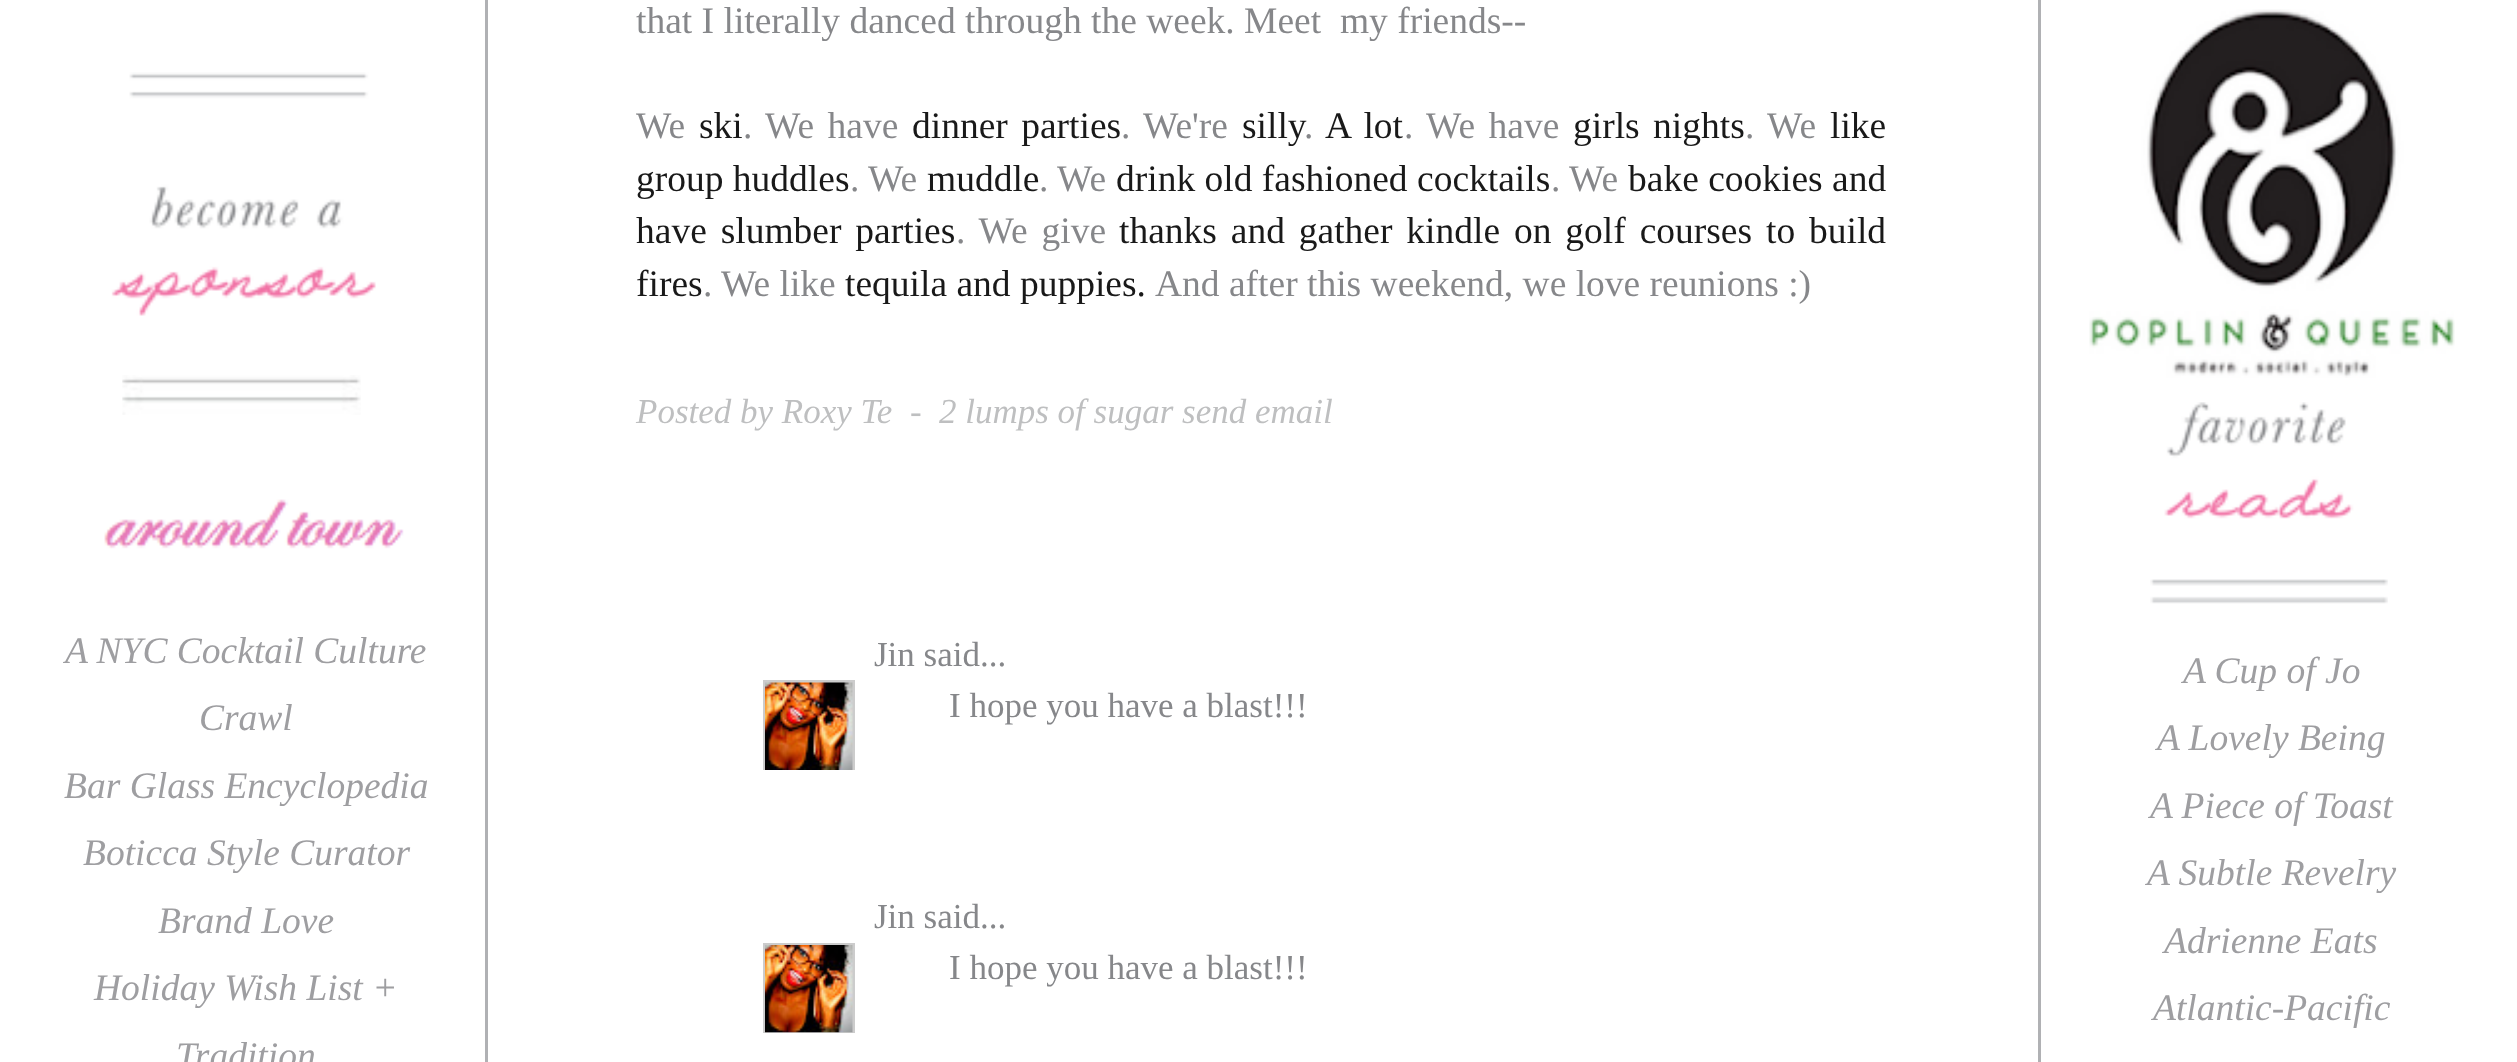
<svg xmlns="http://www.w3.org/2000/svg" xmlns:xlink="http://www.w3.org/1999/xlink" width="2517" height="1062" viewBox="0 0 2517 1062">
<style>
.cls-1{font:italic 37.5px Liberation Serif;fill:#9e9ea1}
.cls-2{font:37.5px Liberation Serif;fill:#86878a}
.cls-3{font:37.5px Liberation Serif;fill:#191919}
.cls-4{font:italic 35px Liberation Serif;fill:#bebfc0}
.cls-5{font:35px Liberation Serif;fill:#86878a}
</style>
<defs>
<clipPath id="clip1"><rect x="763" y="680" width="92" height="90"/></clipPath>
<clipPath id="clip2"><rect x="763" y="943" width="92" height="90"/></clipPath>
</defs>
<rect width="100%" height="100%" fill="#ffffff"/>
<image xlink:href="image0.png" x="111" y="72" width="265" height="244"/>
<image xlink:href="image1.png" x="122" y="375" width="239" height="40"/>
<image xlink:href="image2.png" x="104" y="499" width="300" height="50"/>
<rect fill="#b0b1b4" x="2038" y="0" width="3" height="1062"/>
<rect fill="#b0b1b4" x="485" y="0" width="3" height="1062"/>
<g clip-path="url(#clip1)">
<rect fill="none" stroke="#cccccc" stroke-width="3" x="764.5" y="681.5" width="89" height="90"/>
</g>
<image xlink:href="image3.png" x="765" y="682" width="88" height="88"/>
<g clip-path="url(#clip2)">
<rect fill="none" stroke="#cccccc" stroke-width="3" x="764.5" y="944.5" width="89" height="89"/>
</g>
<image xlink:href="image4.png" x="765" y="945" width="88" height="88"/>
<image xlink:href="image5.png" x="2089" y="9" width="366" height="369"/>
<image xlink:href="image6.png" x="2150" y="402" width="238" height="202"/>
<text class="cls-1" x="65" y="663">A NYC Cocktail Culture</text>
<text class="cls-1" x="199" y="730">Crawl</text>
<text class="cls-1" x="64" y="798">Bar Glass Encyclopedia</text>
<text class="cls-1" x="83" y="865">Boticca Style Curator</text>
<text class="cls-1" x="158" y="933">Brand Love</text>
<text class="cls-1" x="94" y="1000">Holiday Wish List +</text>
<text class="cls-1" x="176" y="1068">Tradition</text>
<text class="cls-2" xml:space="preserve" x="636" y="33">that I literally danced through the week. Meet  my friends--</text>
<text class="cls-2" x="636" y="138">We</text>
<text class="cls-3" x="699" y="138">ski</text>
<text class="cls-2" x="743" y="138" word-spacing="4">. We have</text>
<text class="cls-3" x="912" y="138" word-spacing="4">dinner parties</text>
<text class="cls-2" x="1121" y="138" word-spacing="4">. We're</text>
<text class="cls-3" x="1242" y="138">silly</text>
<text class="cls-2" x="1304" y="138">.</text>
<text class="cls-3" x="1325" y="138" word-spacing="4">A lot</text>
<text class="cls-2" x="1404" y="138" word-spacing="4">. We have</text>
<text class="cls-3" x="1573" y="138" word-spacing="4">girls nights</text>
<text class="cls-2" x="1745" y="138" word-spacing="4">. We</text>
<text class="cls-3" x="1830" y="138">like</text>
<text class="cls-3" x="636" y="191">group huddles</text>
<text class="cls-2" x="850" y="191">. We</text>
<text class="cls-3" x="927" y="191">muddle</text>
<text class="cls-2" x="1039" y="191">. We</text>
<text class="cls-3" x="1116" y="191">drink old fashioned cocktails</text>
<text class="cls-2" x="1551" y="191">. We</text>
<text class="cls-3" x="1628" y="191">bake cookies and</text>
<text class="cls-3" x="636" y="243" word-spacing="4.5">have slumber parties</text>
<text class="cls-2" x="956" y="243" word-spacing="4.5">. We give</text>
<text class="cls-3" x="1119" y="243" word-spacing="4.5">thanks and gather kindle on golf courses to build</text>
<text class="cls-3" x="636" y="296">fires</text>
<text class="cls-2" x="703" y="296">. We like</text>
<text class="cls-3" x="845" y="296">tequila and puppies.</text>
<text class="cls-2" x="1155" y="296">And after this weekend, we love reunions :)</text>
<text class="cls-4" x="636" y="423">Posted by Roxy Te</text>
<text class="cls-4" x="910" y="423">-</text>
<text class="cls-4" x="939" y="423">2 lumps of sugar send email</text>
<text class="cls-5" x="874" y="666">Jin said...</text>
<text class="cls-5" x="949" y="717">I hope you have a blast!!!</text>
<text class="cls-5" x="874" y="928">Jin said...</text>
<text class="cls-5" x="949" y="979">I hope you have a blast!!!</text>
<text class="cls-1" x="2183" y="683">A Cup of Jo</text>
<text class="cls-1" x="2157" y="750">A Lovely Being</text>
<text class="cls-1" x="2150" y="818">A Piece of Toast</text>
<text class="cls-1" x="2147" y="885">A Subtle Revelry</text>
<text class="cls-1" x="2164" y="953">Adrienne Eats</text>
<text class="cls-1" x="2153" y="1020">Atlantic-Pacific</text>
</svg>
